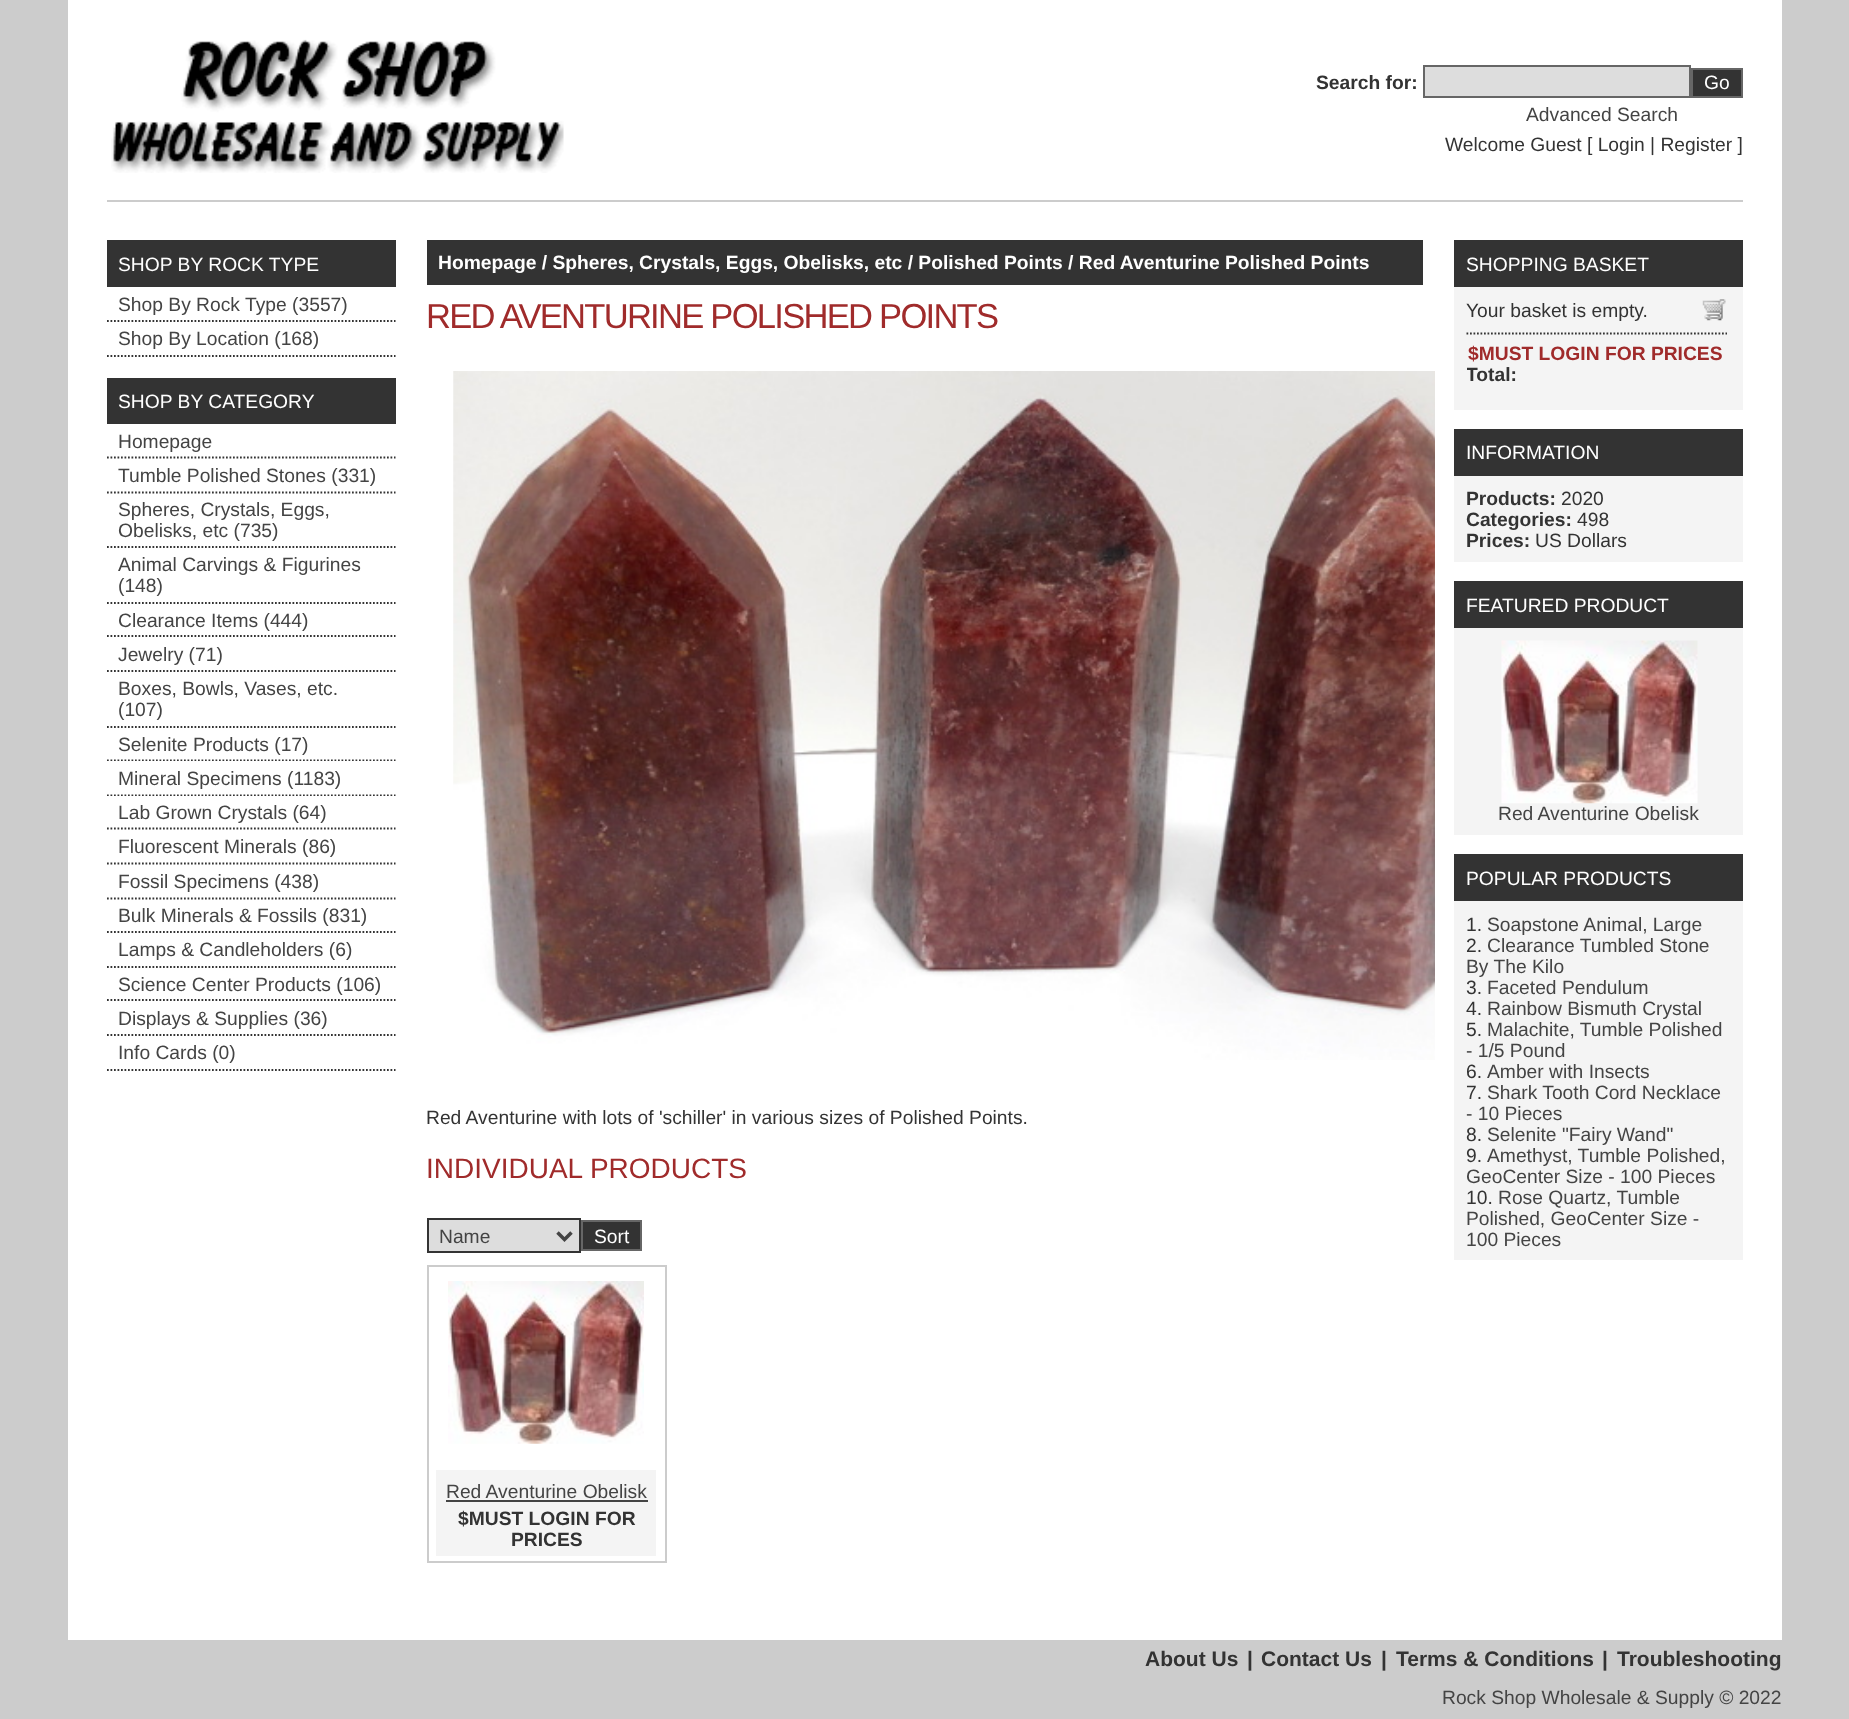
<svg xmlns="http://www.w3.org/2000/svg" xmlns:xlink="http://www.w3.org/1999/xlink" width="1849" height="1719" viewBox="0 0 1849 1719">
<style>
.cls-1{font:bold 19.25px Liberation Sans;fill:#333333}
.cls-2{font:19.25px Liberation Sans;fill:#ffffff}
.cls-3{font:19.25px Liberation Sans;fill:#444444}
.cls-4{font:19.25px Liberation Sans;fill:#333333}
.cls-5{font:bold 19.25px Liberation Sans;fill:#ffffff}
.cls-6{font:34.6px Liberation Sans;letter-spacing:-1.75px;fill:#a02b2b}
.cls-7{font:28px Liberation Sans;fill:#a02b2b}
.cls-8{font:bold 19.25px Liberation Sans;fill:#a02b2b}
.cls-9{font:bold 21px Liberation Sans;fill:#333333}
</style>
<defs>
<clipPath id="clip1"><rect x="1467" y="334" width="260" height="65"/></clipPath>
</defs>
<rect width="100%" height="100%" fill="#cccccc"/>
<rect fill="#ffffff" x="68" y="0" width="1714" height="1640"/>
<image xlink:href="image0.png" x="111" y="39" width="453" height="134"/>
<rect fill="#cccccc" x="107" y="200" width="1636" height="2"/>
<rect fill="#dddddd" stroke="#666666" stroke-width="2" x="1424" y="66" width="266" height="31"/>
<rect fill="#333333" stroke="#666666" stroke-width="2" x="1692" y="69" width="50" height="28"/>
<rect fill="#333333" x="107" y="240" width="289" height="47"/>
<path fill="none" stroke="#333333" stroke-width="1.8" stroke-dasharray="1.75 1.75" d="M107 321H395.5"/>
<path fill="none" stroke="#333333" stroke-width="1.8" stroke-dasharray="1.75 1.75" d="M107 356H395.5"/>
<rect fill="#333333" x="107" y="378" width="289" height="46"/>
<path fill="none" stroke="#333333" stroke-width="1.8" stroke-dasharray="1.75 1.75" d="M107 457.5H395.5"/>
<path fill="none" stroke="#333333" stroke-width="1.8" stroke-dasharray="1.75 1.75" d="M107 492.5H395.5"/>
<path fill="none" stroke="#333333" stroke-width="1.8" stroke-dasharray="1.75 1.75" d="M107 547H395.5"/>
<path fill="none" stroke="#333333" stroke-width="1.8" stroke-dasharray="1.75 1.75" d="M107 603H395.5"/>
<path fill="none" stroke="#333333" stroke-width="1.8" stroke-dasharray="1.75 1.75" d="M107 636H395.5"/>
<path fill="none" stroke="#333333" stroke-width="1.8" stroke-dasharray="1.75 1.75" d="M107 671H395.5"/>
<path fill="none" stroke="#333333" stroke-width="1.8" stroke-dasharray="1.75 1.75" d="M107 727H395.5"/>
<path fill="none" stroke="#333333" stroke-width="1.8" stroke-dasharray="1.75 1.75" d="M107 760.5H395.5"/>
<rect fill="#ffffff" x="107" y="761" width="289" height="1"/>
<path fill="none" stroke="#333333" stroke-width="1.8" stroke-dasharray="1.75 1.75" d="M107 795.5H395.5"/>
<rect fill="#ffffff" x="107" y="796" width="289" height="1"/>
<path fill="none" stroke="#333333" stroke-width="1.8" stroke-dasharray="1.75 1.75" d="M107 828.5H395.5"/>
<path fill="none" stroke="#333333" stroke-width="1.8" stroke-dasharray="1.75 1.75" d="M107 863.5H395.5"/>
<path fill="none" stroke="#333333" stroke-width="1.8" stroke-dasharray="1.75 1.75" d="M107 898.5H395.5"/>
<path fill="none" stroke="#333333" stroke-width="1.8" stroke-dasharray="1.75 1.75" d="M107 932H395.5"/>
<path fill="none" stroke="#333333" stroke-width="1.8" stroke-dasharray="1.75 1.75" d="M107 967H395.5"/>
<path fill="none" stroke="#333333" stroke-width="1.8" stroke-dasharray="1.75 1.75" d="M107 1000H395.5"/>
<path fill="none" stroke="#333333" stroke-width="1.8" stroke-dasharray="1.75 1.75" d="M107 1035H395.5"/>
<path fill="none" stroke="#333333" stroke-width="1.8" stroke-dasharray="1.75 1.75" d="M107 1070H395.5"/>
<rect fill="#333333" x="427" y="240" width="996" height="45"/>
<image xlink:href="image1.png" x="453" y="371" width="982" height="689"/>
<rect fill="#dddddd" stroke="#333333" stroke-width="2" x="428" y="1219" width="152" height="33"/>
<path fill="none" stroke="#444444" stroke-width="3.5" d="M557.5 1232.5L564.5 1239.5L571.5 1232.5"/>
<rect fill="#333333" stroke="#666666" stroke-width="2" x="582" y="1221" width="59" height="29"/>
<rect fill="none" stroke="#cccccc" stroke-width="2" x="428" y="1266" width="238" height="296"/>
<image xlink:href="image2.png" x="448" y="1281" width="196" height="163"/>
<rect fill="#f4f4f4" x="436" y="1470" width="220" height="86"/>
<rect fill="#444444" x="446" y="1500" width="202" height="2"/>
<rect fill="#333333" x="1454" y="240" width="289" height="47"/>
<rect fill="#f4f4f4" x="1454" y="287" width="289" height="123"/>
<image xlink:href="image3.png" x="1702" y="299" width="24" height="22"/>
<path fill="none" stroke="#333333" stroke-width="1.8" stroke-dasharray="1.75 1.75" d="M1466.5 333.5H1727"/>
<rect fill="#333333" x="1454" y="429" width="289" height="47"/>
<rect fill="#f4f4f4" x="1454" y="476" width="289" height="86"/>
<rect fill="#333333" x="1454" y="581" width="289" height="47"/>
<rect fill="#f4f4f4" x="1454" y="628" width="289" height="207"/>
<image xlink:href="image4.png" x="1501" y="640" width="197" height="164"/>
<rect fill="#333333" x="1454" y="854" width="289" height="47"/>
<rect fill="#f4f4f4" x="1454" y="901" width="289" height="359"/>
<text class="cls-1" x="1316" y="89">Search for:</text>
<text class="cls-2" x="1704" y="89">Go</text>
<text class="cls-3" x="1526" y="121">Advanced Search</text>
<text class="cls-4" x="1445" y="151">Welcome Guest [ Login | Register ]</text>
<text class="cls-2" x="118" y="271">SHOP BY ROCK TYPE</text>
<text class="cls-3"><tspan x="118" y="311">Shop By Rock Type (3557)</tspan><tspan x="118" y="345">Shop By Location (168)</tspan></text>
<text class="cls-2" x="118" y="408">SHOP BY CATEGORY</text>
<text class="cls-3"><tspan x="118" y="448">Homepage</tspan><tspan x="118" y="482">Tumble Polished Stones (331)</tspan><tspan x="118" y="516">Spheres, Crystals, Eggs,</tspan><tspan x="118" y="537">Obelisks, etc (735)</tspan><tspan x="118" y="571">Animal Carvings &amp; Figurines</tspan><tspan x="118" y="592">(148)</tspan><tspan x="118" y="627">Clearance Items (444)</tspan><tspan x="118" y="661">Jewelry (71)</tspan><tspan x="118" y="695">Boxes, Bowls, Vases, etc.</tspan><tspan x="118" y="716">(107)</tspan><tspan x="118" y="751">Selenite Products (17)</tspan><tspan x="118" y="785">Mineral Specimens (1183)</tspan><tspan x="118" y="819">Lab Grown Crystals (64)</tspan><tspan x="118" y="853">Fluorescent Minerals (86)</tspan><tspan x="118" y="888">Fossil Specimens (438)</tspan><tspan x="118" y="922">Bulk Minerals &amp; Fossils (831)</tspan><tspan x="118" y="956">Lamps &amp; Candleholders (6)</tspan><tspan x="118" y="991">Science Center Products (106)</tspan><tspan x="118" y="1025">Displays &amp; Supplies (36)</tspan><tspan x="118" y="1059">Info Cards (0)</tspan></text>
<text class="cls-5" x="438" y="269">Homepage / Spheres, Crystals, Eggs, Obelisks, etc / Polished Points / Red Aventurine Polished Points</text>
<text class="cls-6" x="426" y="328">RED AVENTURINE POLISHED POINTS</text>
<text class="cls-4" x="426" y="1124">Red Aventurine with lots of 'schiller' in various sizes of Polished Points.</text>
<text class="cls-7" x="426" y="1178">INDIVIDUAL PRODUCTS</text>
<text class="cls-3" x="439" y="1243">Name</text>
<text class="cls-2" x="594" y="1243">Sort</text>
<text class="cls-3" x="446" y="1498">Red Aventurine Obelisk</text>
<text class="cls-1" x="458" y="1525">$MUST LOGIN FOR</text>
<text class="cls-1" x="511" y="1546">PRICES</text>
<text class="cls-2" x="1466" y="271">SHOPPING BASKET</text>
<text class="cls-4" x="1466" y="317">Your basket is empty.</text>
<text class="cls-8" x="1468" y="360">$MUST LOGIN FOR PRICES</text>
<g clip-path="url(#clip1)">
<text class="cls-1" x="1466" y="381">Total:</text>
</g>
<text class="cls-2" x="1466" y="459">INFORMATION</text>
<text class="cls-1" x="1466" y="505">Products:</text>
<text class="cls-4" x="1561" y="505">2020</text>
<text class="cls-1" x="1466" y="526">Categories:</text>
<text class="cls-4" x="1577" y="526">498</text>
<text class="cls-1" x="1466" y="547">Prices:</text>
<text class="cls-4" x="1535" y="547">US Dollars</text>
<text class="cls-2" x="1466" y="612">FEATURED PRODUCT</text>
<text class="cls-3" x="1498" y="820">Red Aventurine Obelisk</text>
<text class="cls-2" x="1466" y="885">POPULAR PRODUCTS</text>
<text class="cls-4" x="1466" y="931">1.</text>
<text class="cls-3" x="1487" y="931">Soapstone Animal, Large</text>
<text class="cls-4" x="1466" y="952">2.</text>
<text class="cls-3" x="1487" y="952">Clearance Tumbled Stone</text>
<text class="cls-3" x="1466" y="973">By The Kilo</text>
<text class="cls-4" x="1466" y="994">3.</text>
<text class="cls-3" x="1487" y="994">Faceted Pendulum</text>
<text class="cls-4" x="1466" y="1015">4.</text>
<text class="cls-3" x="1487" y="1015">Rainbow Bismuth Crystal</text>
<text class="cls-4" x="1466" y="1036">5.</text>
<text class="cls-3" x="1487" y="1036">Malachite, Tumble Polished</text>
<text class="cls-3" x="1466" y="1057">- 1/5 Pound</text>
<text class="cls-4" x="1466" y="1078">6.</text>
<text class="cls-3" x="1487" y="1078">Amber with Insects</text>
<text class="cls-4" x="1466" y="1099">7.</text>
<text class="cls-3" x="1487" y="1099">Shark Tooth Cord Necklace</text>
<text class="cls-3" x="1466" y="1120">- 10 Pieces</text>
<text class="cls-4" x="1466" y="1141">8.</text>
<text class="cls-3" x="1487" y="1141">Selenite "Fairy Wand"</text>
<text class="cls-4" x="1466" y="1162">9.</text>
<text class="cls-3" x="1487" y="1162">Amethyst, Tumble Polished,</text>
<text class="cls-3" x="1466" y="1183">GeoCenter Size - 100 Pieces</text>
<text class="cls-4" x="1466" y="1204">10.</text>
<text class="cls-3" x="1498" y="1204">Rose Quartz, Tumble</text>
<text class="cls-3"><tspan x="1466" y="1225">Polished, GeoCenter Size -</tspan><tspan x="1466" y="1246">100 Pieces</tspan></text>
<text class="cls-9" x="1145" y="1666">About Us</text>
<text class="cls-9" x="1247" y="1666">|</text>
<text class="cls-9" x="1261" y="1666">Contact Us</text>
<text class="cls-9" x="1381" y="1666">|</text>
<text class="cls-9" x="1396" y="1666">Terms &amp; Conditions</text>
<text class="cls-9" x="1602" y="1666">|</text>
<text class="cls-9" x="1617" y="1666">Troubleshooting</text>
<text class="cls-3" x="1442" y="1704">Rock Shop Wholesale &amp; Supply © 2022</text>
</svg>
